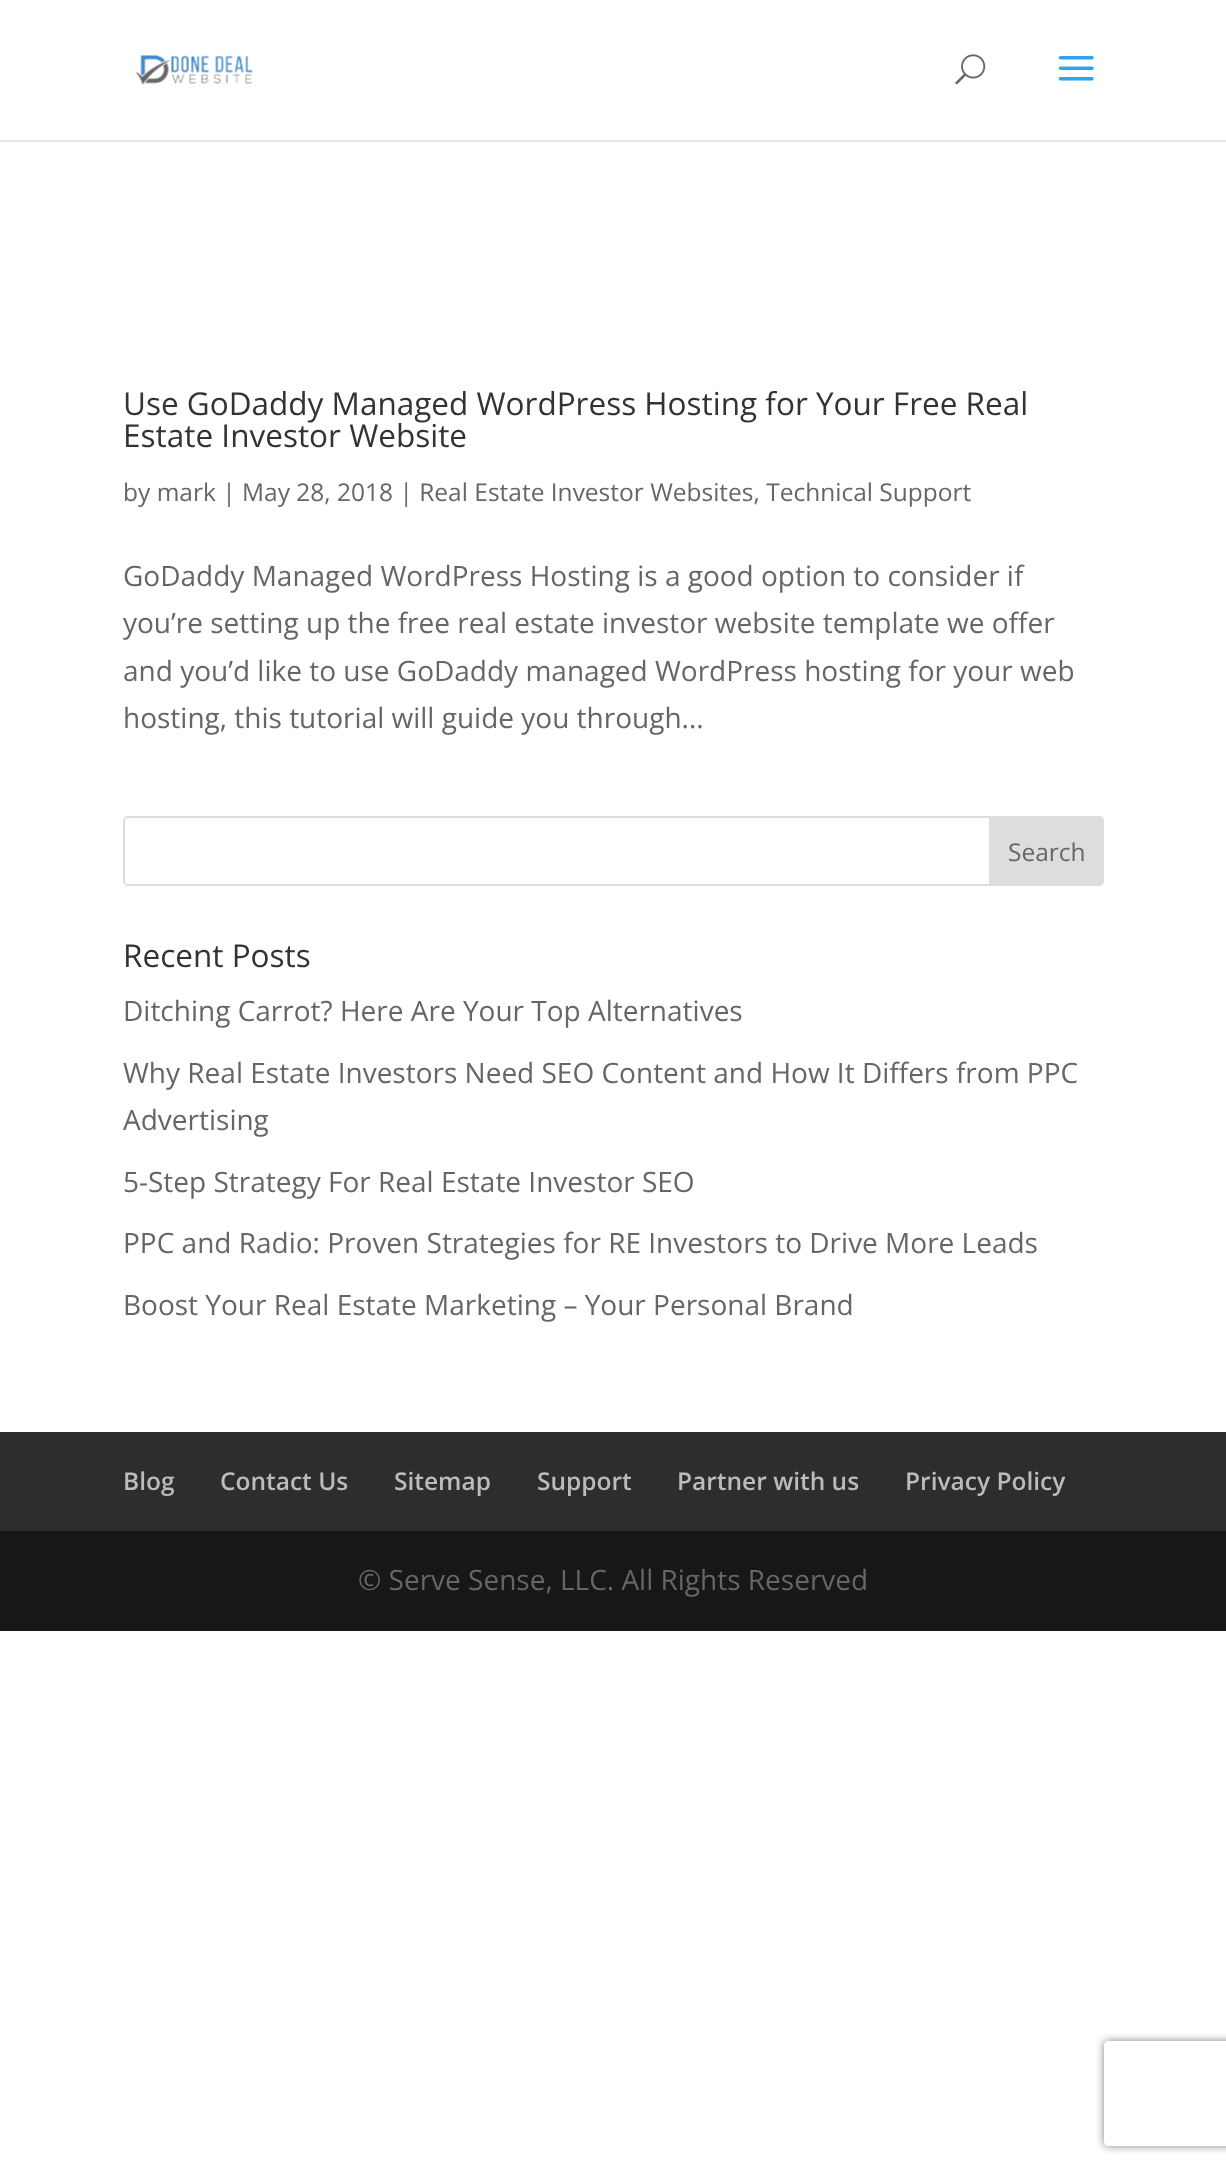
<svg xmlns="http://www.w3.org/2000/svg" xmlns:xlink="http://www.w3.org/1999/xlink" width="1226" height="2170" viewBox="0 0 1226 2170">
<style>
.cls-1{font:31.5px Open Sans;fill:#333333}
.cls-2{font:24.5px Open Sans;fill:#666666}
.cls-3{font:28px Open Sans;fill:#666666}
.cls-4{font:600 24.5px Open Sans;fill:#bbbbbb}
</style>
<defs>
<clipPath id="clip1"><path d="M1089 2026H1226V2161H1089ZM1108 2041H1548C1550 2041 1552 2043 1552 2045V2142C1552 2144 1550 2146 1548 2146H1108C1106 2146 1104 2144 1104 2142V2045C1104 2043 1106 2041 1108 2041Z" clip-rule="evenodd"/></clipPath>
</defs>
<rect width="100%" height="100%" fill="#ffffff"/>
<path fill="#e6e6e6" d="M0 140V142H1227V2V140Z"/>
<image xlink:href="image0.png" x="135" y="55" width="118" height="30"/>
<image xlink:href="image1.png" x="955" y="54" width="31" height="31"/>
<image xlink:href="image2.png" x="1058" y="56" width="36" height="25"/>
<rect fill="none" stroke="#dddddd" stroke-width="2" x="124" y="817" width="979" height="68" rx="4"/>
<path fill="#dddddd" stroke="#dddddd" stroke-width="2" d="M990 817H1099C1101 817 1103 819 1103 821V881C1103 883 1101 885 1099 885H990Z"/>
<rect fill="#2d2d2d" x="0" y="1432" width="1226" height="99"/>
<rect fill="#171717" x="0" y="1531" width="1226" height="100"/>
<g clip-path="url(#clip1)">
<rect fill="#808080" filter="blur(4.5px)" x="1104" y="2041" width="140" height="105" rx="4"/>
</g>
<text class="cls-1"><tspan x="123" y="415">Use GoDaddy Managed WordPress Hosting for Your Free Real</tspan><tspan x="123" y="447">Estate Investor Website</tspan></text>
<text class="cls-2" x="123" y="501">by mark | May 28, 2018 | Real Estate Investor Websites, Technical Support</text>
<text class="cls-3"><tspan x="123" y="586">GoDaddy Managed WordPress Hosting is a good option to consider if</tspan><tspan x="123" y="633">you’re setting up the free real estate investor website template we offer</tspan><tspan x="123" y="681">and you’d like to use GoDaddy managed WordPress hosting for your web</tspan><tspan x="123" y="728">hosting, this tutorial will guide you through...</tspan></text>
<text class="cls-2" x="1008" y="861">Search</text>
<text class="cls-1" x="123" y="967">Recent Posts</text>
<text class="cls-3" x="123" y="1021">Ditching Carrot? Here Are Your Top Alternatives</text>
<text class="cls-3"><tspan x="123" y="1083">Why Real Estate Investors Need SEO Content and How It Differs from PPC</tspan><tspan x="123" y="1130">Advertising</tspan></text>
<text class="cls-3" x="123" y="1192">5-Step Strategy For Real Estate Investor SEO</text>
<text class="cls-3" x="123" y="1253">PPC and Radio: Proven Strategies for RE Investors to Drive More Leads</text>
<text class="cls-3" x="123" y="1315">Boost Your Real Estate Marketing – Your Personal Brand</text>
<text class="cls-4" x="123" y="1490">Blog</text>
<text class="cls-4" x="220" y="1490">Contact Us</text>
<text class="cls-4" x="394" y="1490">Sitemap</text>
<text class="cls-4" x="537" y="1490">Support</text>
<text class="cls-4" x="677" y="1490">Partner with us</text>
<text class="cls-4" x="905" y="1490">Privacy Policy</text>
<text class="cls-3" x="358" y="1590">© Serve Sense, LLC. All Rights Reserved</text>
</svg>
